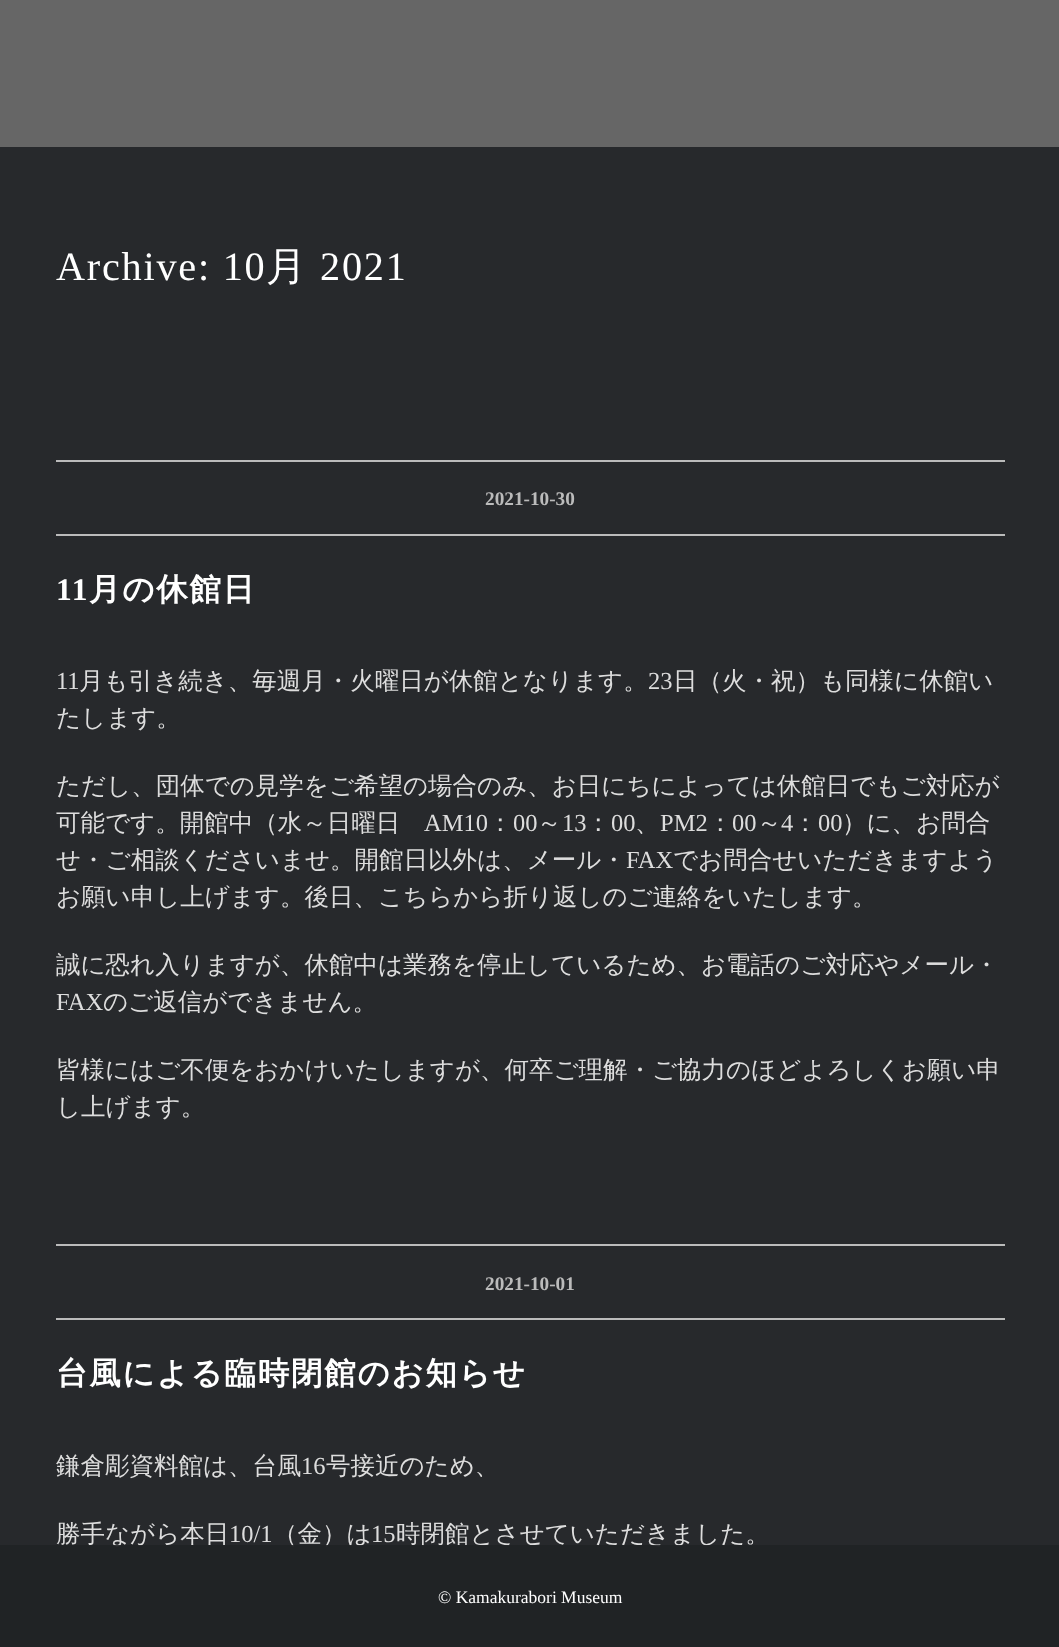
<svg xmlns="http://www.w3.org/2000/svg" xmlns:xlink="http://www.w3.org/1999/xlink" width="1059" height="1647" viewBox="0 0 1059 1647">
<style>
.cls-1{font:40.25px Liberation Serif;letter-spacing:1.75px;fill:#ffffff}
.cls-2{font:500 40.25px WenQuanYi Zen Hei;letter-spacing:1.75px;fill:#ffffff}
.cls-3{font:bold 19.25px Liberation Serif;fill:#bbbbbb}
.cls-4{font:bold 31.5px Liberation Serif;letter-spacing:1.75px;fill:#ffffff}
.cls-5{font:bold 31.5px WenQuanYi Zen Hei;letter-spacing:1.75px;fill:#ffffff}
.cls-6{font:24.5px Liberation Serif;fill:#dddddd}
.cls-7{font:500 24.5px WenQuanYi Zen Hei;fill:#dddddd}
.cls-8{font:17.5px Liberation Serif;fill:#ffffff}
</style>
<rect width="100%" height="100%" fill="#666666"/>
<rect fill="#27292c" x="0" y="147" width="1059" height="1500"/>
<rect fill="#bbbbbb" x="56" y="460" width="949" height="2"/>
<rect fill="#bbbbbb" x="56" y="534" width="949" height="2"/>
<rect fill="#bbbbbb" x="56" y="1244" width="949" height="2"/>
<rect fill="#bbbbbb" x="56" y="1318" width="949" height="2"/>
<text class="cls-1" x="56" y="280">Archive: 10</text>
<text class="cls-2" x="266" y="280">月</text>
<text class="cls-1" x="320" y="280">2021</text>
<text class="cls-3" x="485" y="505">2021-10-30</text>
<text class="cls-4" x="56" y="600">11</text>
<text class="cls-5" x="89" y="600">月の休館日</text>
<text class="cls-6" x="56" y="689">11</text>
<text class="cls-7" x="79" y="689">月も引き続き、毎週月・火曜日が休館となります。</text>
<text class="cls-6" x="648" y="689">23</text>
<text class="cls-7" x="673" y="689">日（火・祝）も同様に休館い</text>
<text class="cls-7" x="56" y="726">たします。</text>
<text class="cls-7"><tspan x="56" y="794">ただし、団体での見学をご希望の場合のみ、お日にちによっては休館日でもご対応が</tspan><tspan x="56" y="831">可能です。開館中（水～日曜日</tspan></text>
<text class="cls-6" x="424" y="831">AM10</text>
<text class="cls-7" x="488" y="831">：</text>
<text class="cls-6" x="513" y="831">00</text>
<text class="cls-7" x="537" y="831">～</text>
<text class="cls-6" x="562" y="831">13</text>
<text class="cls-7" x="586" y="831">：</text>
<text class="cls-6" x="611" y="831">00</text>
<text class="cls-6" x="660" y="831">PM2</text>
<text class="cls-7" x="708" y="831">：</text>
<text class="cls-6" x="732" y="831">00</text>
<text class="cls-7" x="757" y="831">～</text>
<text class="cls-6" x="781" y="831">4</text>
<text class="cls-7" x="793" y="831">：</text>
<text class="cls-6" x="818" y="831">00</text>
<text class="cls-7" x="842" y="831">）に、お問合</text>
<text class="cls-7" x="635" y="831">、</text>
<text class="cls-7" x="56" y="868">せ・ご相談くださいませ。開館日以外は、メール・</text>
<text class="cls-6" x="626" y="868">FAX</text>
<text class="cls-7" x="673" y="868">でお問合せいただきますよう</text>
<text class="cls-7" x="56" y="905">お願い申し上げます。後日、こちらから折り返しのご連絡をいたします。</text>
<text class="cls-7" x="56" y="973">誠に恐れ入りますが、休館中は業務を停止しているため、お電話のご対応やメール・</text>
<text class="cls-6" x="56" y="1010">FAX</text>
<text class="cls-7" x="103" y="1010">のご返信ができません。</text>
<text class="cls-7"><tspan x="56" y="1078">皆様にはご不便をおかけいたしますが、何卒ご理解・ご協力のほどよろしくお願い申</tspan><tspan x="56" y="1115">し上げます。</tspan></text>
<text class="cls-3" x="485" y="1290">2021-10-01</text>
<text class="cls-5" x="56" y="1384">台風による臨時閉館のお知らせ</text>
<text class="cls-7" x="56" y="1474">鎌倉彫資料館は、台風</text>
<text class="cls-6" x="301" y="1474">16</text>
<text class="cls-7" x="326" y="1474">号接近のため、</text>
<text class="cls-7" x="56" y="1542">勝手ながら本日</text>
<text class="cls-6" x="229" y="1542">10/1</text>
<text class="cls-7" x="273" y="1542">（金）は</text>
<text class="cls-6" x="371" y="1542">15</text>
<text class="cls-7" x="396" y="1542">時閉館とさせていただきました。</text>
<rect fill="#202225" fill-opacity="0.9" x="0" y="1545" width="1059" height="102"/>
<text class="cls-8" x="438" y="1603">© Kamakurabori Museum</text>
</svg>
